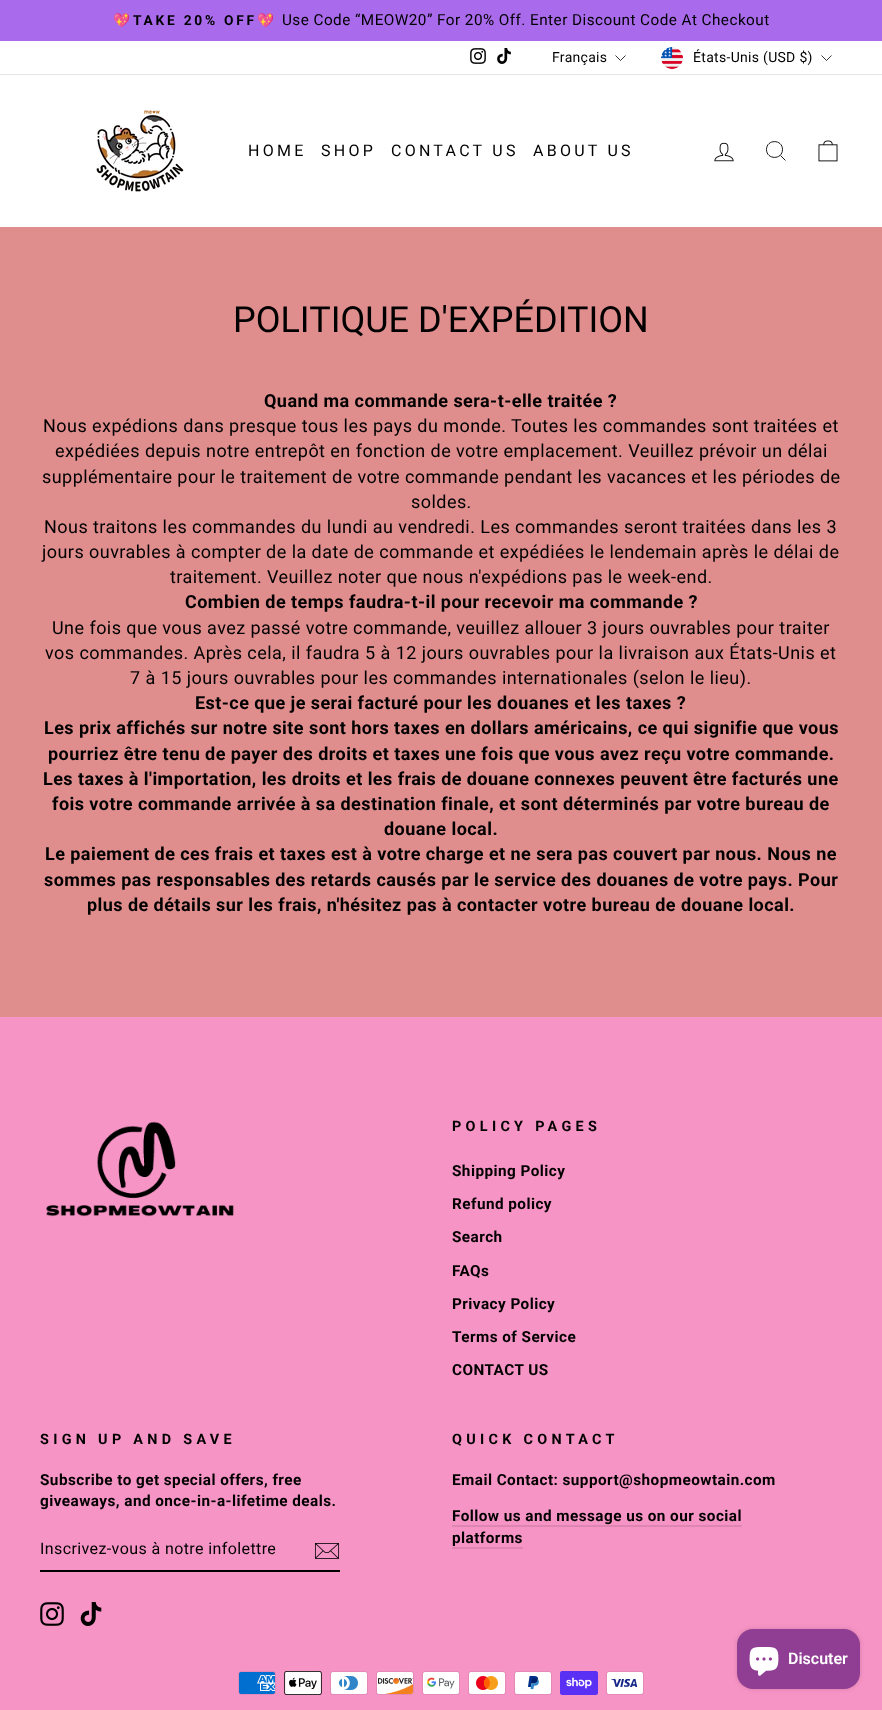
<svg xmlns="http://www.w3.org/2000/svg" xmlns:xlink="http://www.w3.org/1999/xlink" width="882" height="1710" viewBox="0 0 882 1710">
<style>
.cls-1{font:bold 13.75px Noto Color Emoji;letter-spacing:2.75px;fill:#000000}
.cls-2{font:bold 13.75px Roboto;letter-spacing:2.75px;fill:#000000}
.cls-3{font:15.3px Roboto;letter-spacing:0.45px;fill:#000000}
.cls-4{font:14px Roboto;letter-spacing:0.3px;fill:#000000}
.cls-5{font:16px Roboto;letter-spacing:3.25px;fill:#000000}
.cls-6{font:36px Roboto;fill:#000000}
.cls-7{font:bold 18px Roboto;letter-spacing:0.45px;fill:#000000}
.cls-8{font:18px Roboto;letter-spacing:0.45px;fill:#000000}
.cls-9{font:bold 14.4px Roboto;letter-spacing:4.3px;fill:#000000}
.cls-10{font:bold 15.3px Roboto;letter-spacing:0.45px;fill:#000000}
.cls-11{font:16px Roboto;letter-spacing:0.4px;fill:#000000}
.cls-12{font:600 16px Roboto;fill:#ffffff}
</style>
<rect width="100%" height="100%" fill="#e08d8d"/>
<rect fill="#a96bec" x="0" y="0" width="882" height="41"/>
<rect fill="#ffffff" x="0" y="41" width="882" height="33"/>
<image xlink:href="image0.png" x="470" y="48" width="16" height="16"/>
<image xlink:href="image1.png" x="497" y="48" width="14" height="16"/>
<path fill="none" stroke="#000000" stroke-width="0.8" d="M615.5 55.5L620.5 60.5L625.5 55.5"/>
<image xlink:href="image2.png" x="661" y="47" width="22" height="22"/>
<path fill="none" stroke="#000000" stroke-width="0.8" d="M821.5 55.5L826.5 60.5L831.5 55.5"/>
<rect fill="#ffffff" x="0" y="75" width="882" height="152"/>
<rect fill="#e6e6e6" x="0" y="74" width="882" height="1"/>
<image xlink:href="image3.png" x="96" y="110" width="88" height="82"/>
<image xlink:href="image4.png" x="714" y="142" width="20" height="20"/>
<path fill="none" stroke="#000000" stroke-width="0.9" d="M782.5 149.5C782.5 160 766.5 160 766.5 149.5C766.5 139 782.5 139 782.5 149.5ZM785.5 160.5L780.5 155.5"/>
<image xlink:href="image5.png" x="818" y="140" width="20" height="22"/>
<rect fill="#f794c6" x="0" y="1017" width="882" height="693"/>
<image xlink:href="image6.png" x="46" y="1121" width="188" height="96"/>
<rect fill="#000000" x="40" y="1570" width="300" height="2"/>
<image xlink:href="image7.png" x="314" y="1543" width="26" height="16"/>
<image xlink:href="image8.png" x="40" y="1602" width="24" height="24"/>
<image xlink:href="image9.png" x="80" y="1602" width="22" height="24"/>
<rect fill="#de85b2" x="452" y="1525" width="290" height="2"/>
<rect fill="#de85b2" x="452" y="1547" width="71" height="2"/>
<image xlink:href="image10.png" x="238" y="1671" width="38" height="24"/>
<image xlink:href="image11.png" x="284" y="1671" width="38" height="24"/>
<image xlink:href="image12.png" x="330" y="1671" width="38" height="24"/>
<image xlink:href="image13.png" x="376" y="1671" width="38" height="24"/>
<image xlink:href="image14.png" x="422" y="1671" width="38" height="24"/>
<image xlink:href="image15.png" x="468" y="1671" width="38" height="24"/>
<image xlink:href="image16.png" x="514" y="1671" width="38" height="24"/>
<image xlink:href="image17.png" x="560" y="1671" width="38" height="24"/>
<image xlink:href="image18.png" x="606" y="1671" width="38" height="24"/>
<rect fill="#000000" fill-opacity="0.15" filter="blur(2.5px)" x="737" y="1629" width="123" height="60" rx="16"/>
<rect fill="#903e93" x="737" y="1629" width="123" height="60" rx="16"/>
<image xlink:href="image19.png" x="749" y="1647" width="30" height="29"/>
<text class="cls-1" x="113" y="25">💖</text>
<text class="cls-2" x="133" y="25">TAKE 20% OFF</text>
<text class="cls-1" x="257" y="25">💖</text>
<text class="cls-3" x="282" y="25">Use Code “MEOW20” For 20% Off. Enter Discount Code At Checkout</text>
<text class="cls-4" x="552" y="62">Français</text>
<text class="cls-4" x="693" y="62">États-Unis (USD $)</text>
<text class="cls-5" x="248" y="156">HOME</text>
<text class="cls-5" x="321" y="156">SHOP</text>
<text class="cls-5" x="391" y="156">CONTACT US</text>
<text class="cls-5" x="533" y="156">ABOUT US</text>
<text class="cls-6" x="233" y="332">POLITIQUE D'EXPÉDITION</text>
<text class="cls-7" x="264" y="407">Quand ma commande sera-t-elle traitée ?</text>
<text class="cls-8" x="43" y="432">Nous expédions dans presque tous les pays du monde. Toutes les commandes sont traitées et</text>
<text class="cls-8" x="55" y="457">expédiées depuis notre entrepôt en fonction de votre emplacement. Veuillez prévoir un délai</text>
<text class="cls-8" x="42" y="483">supplémentaire pour le traitement de votre commande pendant les vacances et les périodes de</text>
<text class="cls-8" x="411" y="508">soldes.</text>
<text class="cls-8" x="44" y="533">Nous traitons les commandes du lundi au vendredi. Les commandes seront traitées dans les 3</text>
<text class="cls-8" x="42" y="558">jours ouvrables à compter de la date de commande et expédiées le lendemain après le délai de</text>
<text class="cls-8" x="170" y="583">traitement. Veuillez noter que nous n'expédions pas le week-end.</text>
<text class="cls-7" x="185" y="608">Combien de temps faudra-t-il pour recevoir ma commande ?</text>
<text class="cls-8" x="52" y="634">Une fois que vous avez passé votre commande, veuillez allouer 3 jours ouvrables pour traiter</text>
<text class="cls-8" x="45" y="659">vos commandes. Après cela, il faudra 5 à 12 jours ouvrables pour la livraison aux États-Unis et</text>
<text class="cls-8" x="130" y="684">7 à 15 jours ouvrables pour les commandes internationales (selon le lieu).</text>
<text class="cls-7" x="195" y="709">Est-ce que je serai facturé pour les douanes et les taxes ?</text>
<text class="cls-7" x="44" y="734">Les prix affichés sur notre site sont hors taxes en dollars américains, ce qui signifie que vous</text>
<text class="cls-7" x="48" y="760">pourriez être tenu de payer des droits et taxes une fois que vous avez reçu votre commande.</text>
<text class="cls-7" x="43" y="785">Les taxes à l'importation, les droits et les frais de douane connexes peuvent être facturés une</text>
<text class="cls-7" x="52" y="810">fois votre commande arrivée à sa destination finale, et sont déterminés par votre bureau de</text>
<text class="cls-7" x="384" y="835">douane local.</text>
<text class="cls-7" x="45" y="860">Le paiement de ces frais et taxes est à votre charge et ne sera pas couvert par nous. Nous ne</text>
<text class="cls-7" x="44" y="886">sommes pas responsables des retards causés par le service des douanes de votre pays. Pour</text>
<text class="cls-7" x="87" y="911">plus de détails sur les frais, n'hésitez pas à contacter votre bureau de douane local.</text>
<text class="cls-9" x="452" y="1131">POLICY PAGES</text>
<text class="cls-10" x="452" y="1176">Shipping Policy</text>
<text class="cls-10" x="452" y="1209">Refund policy</text>
<text class="cls-10" x="452" y="1242">Search</text>
<text class="cls-10" x="452" y="1276">FAQs</text>
<text class="cls-10" x="452" y="1309">Privacy Policy</text>
<text class="cls-10" x="452" y="1342">Terms of Service</text>
<text class="cls-10" x="452" y="1375">CONTACT US</text>
<text class="cls-9" x="40" y="1444">SIGN UP AND SAVE</text>
<text class="cls-10"><tspan x="40" y="1485">Subscribe to get special offers, free</tspan><tspan x="40" y="1506">giveaways, and once-in-a-lifetime deals.</tspan></text>
<text class="cls-11" x="40" y="1554">Inscrivez-vous à notre infolettre</text>
<text class="cls-9" x="452" y="1444">QUICK CONTACT</text>
<text class="cls-10" x="452" y="1485">Email Contact: support@shopmeowtain.com</text>
<text class="cls-10"><tspan x="452" y="1521">Follow us and message us on our social</tspan><tspan x="452" y="1543">platforms</tspan></text>
<text class="cls-12" x="788" y="1664">Discuter</text>
</svg>
